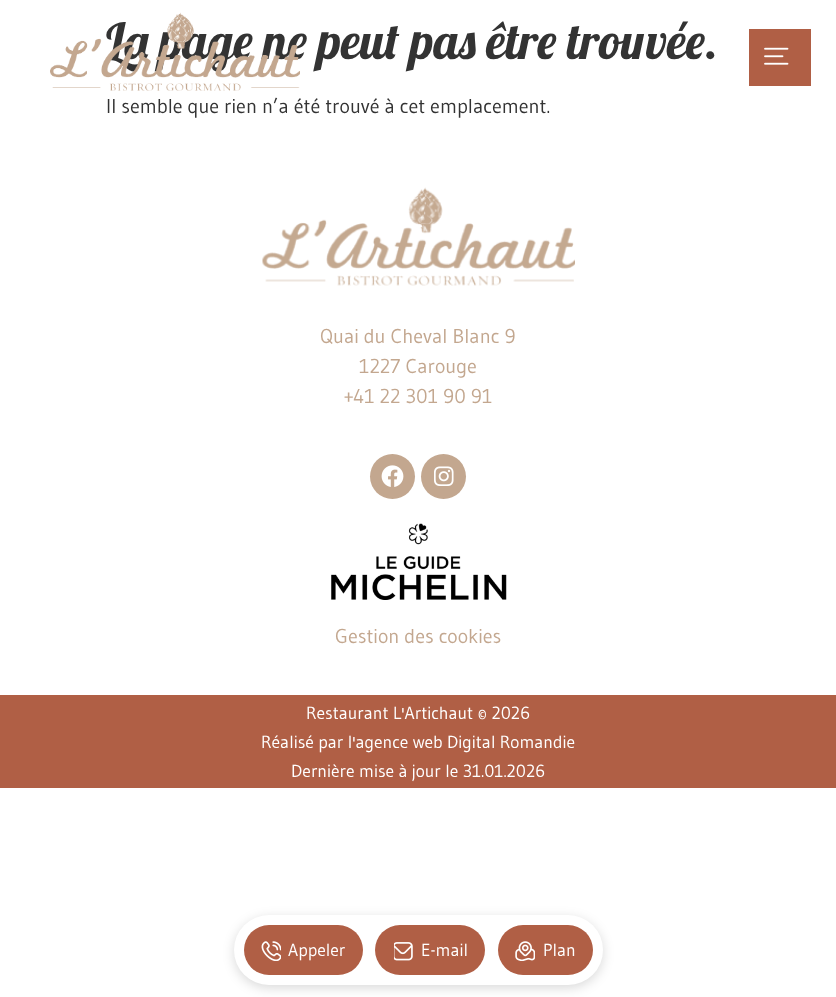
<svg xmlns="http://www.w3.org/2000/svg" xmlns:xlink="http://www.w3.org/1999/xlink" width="836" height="997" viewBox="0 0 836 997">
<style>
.cls-1{font:50px Lobster;fill:#333333}
.cls-2{font:20px Gudea;fill:#333333}
.cls-3{font:20px Gudea;fill:#c3a78f}
.cls-4{font:17.5px Gudea;fill:#ffffff}
</style>
<rect width="100%" height="100%" fill="#ffffff"/>
<rect fill="#b05f45" x="749" y="29" width="62" height="57"/>
<image xlink:href="image1.png" x="764" y="47" width="25" height="18"/>
<image xlink:href="image2.png" x="262" y="187" width="313" height="99"/>
<circle fill="#c3a78f" cx="392.5" cy="476.5" r="22.5"/>
<image xlink:href="image3.png" x="381" y="465" width="23" height="22"/>
<circle fill="#c3a78f" cx="443.5" cy="476.5" r="22.5"/>
<image xlink:href="image4.png" x="434" y="466" width="20" height="20"/>
<image xlink:href="image5.png" x="331" y="523" width="176" height="77"/>
<rect fill="#b05f45" x="0" y="695" width="836" height="93"/>
<rect fill="#000000" fill-opacity="0.15" filter="blur(6px)" x="234" y="918" width="369" height="70" rx="35"/>
<rect fill="#ffffff" x="234" y="915" width="369" height="70" rx="35"/>
<rect fill="#b05f45" x="244" y="925" width="119" height="50" rx="25"/>
<image xlink:href="image6.png" x="261" y="941" width="20" height="20"/>
<rect fill="#b05f45" x="375" y="925" width="110" height="50" rx="25"/>
<image xlink:href="image7.png" x="394" y="942" width="19" height="19"/>
<rect fill="#b05f45" x="498" y="925" width="95" height="50" rx="25"/>
<image xlink:href="image8.png" x="515" y="941" width="20" height="20"/>
<text class="cls-1" x="106" y="59">La page ne peut pas être trouvée.</text>
<image xlink:href="image0.png" x="50" y="12" width="250" height="79"/>
<text class="cls-2" x="106" y="113">Il semble que rien n’a été trouvé à cet emplacement.</text>
<text class="cls-3" x="320" y="343">Quai du Cheval Blanc 9</text>
<text class="cls-3" x="359" y="373">1227 Carouge</text>
<text class="cls-3" x="344" y="403">+41 22 301 90 91</text>
<text class="cls-3" x="335" y="643">Gestion des cookies</text>
<text class="cls-4" x="306" y="719">Restaurant L'Artichaut © 2026</text>
<text class="cls-4" x="261" y="748">Réalisé par l'agence web Digital Romandie</text>
<text class="cls-4" x="291" y="777">Dernière mise à jour le 31.01.2026</text>
<text class="cls-4" x="288" y="956">Appeler</text>
<text class="cls-4" x="421" y="956">E-mail</text>
<text class="cls-4" x="543" y="956">Plan</text>
</svg>
